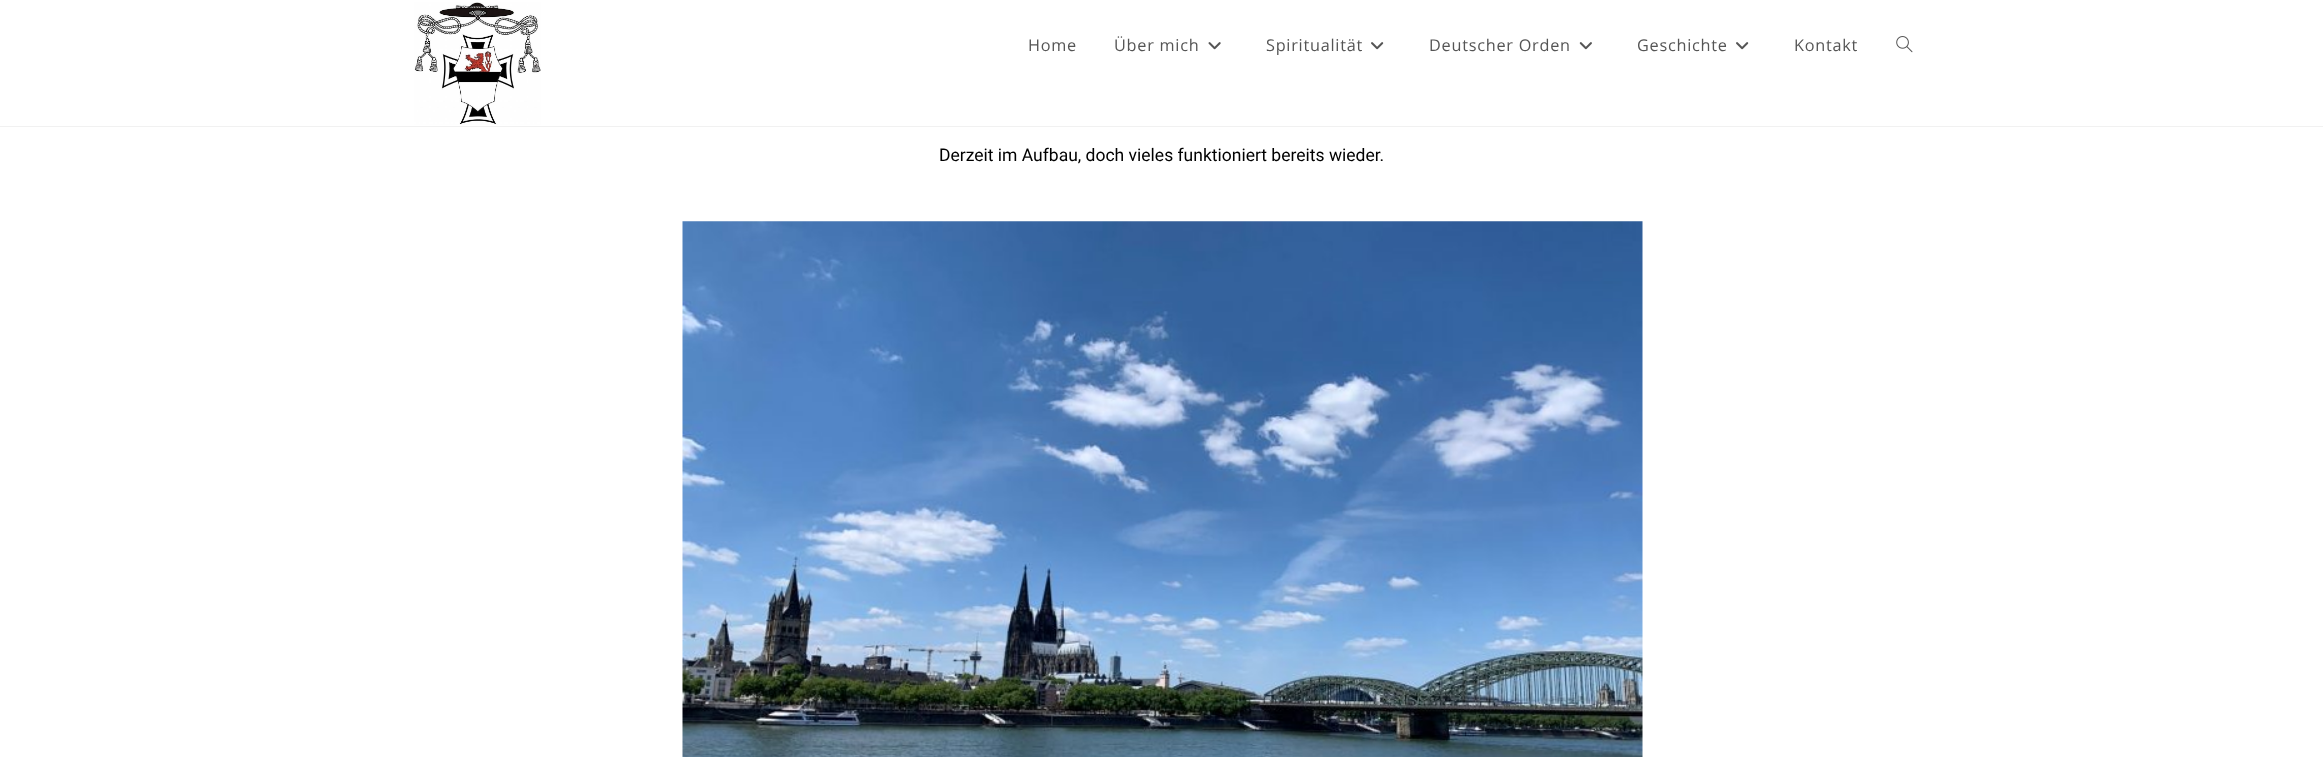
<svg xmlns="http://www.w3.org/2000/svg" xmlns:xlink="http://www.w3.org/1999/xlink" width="2323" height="757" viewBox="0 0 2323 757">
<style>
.cls-1{font:16.25px Open Sans;letter-spacing:0.75px;fill:#555555}
.cls-2{font:17.5px Roboto;fill:#000000}
</style>
<rect width="100%" height="100%" fill="#ffffff"/>
<rect fill="#f1f1f1" x="0" y="126" width="2323" height="1"/>
<image xlink:href="image0.png" x="414" y="2" width="127" height="123"/>
<image xlink:href="image1.png" x="1208" y="42" width="13" height="8"/>
<image xlink:href="image2.png" x="1371" y="42" width="13" height="8"/>
<image xlink:href="image3.png" x="1579" y="42" width="13" height="8"/>
<image xlink:href="image2.png" x="1736" y="42" width="13" height="8"/>
<image xlink:href="image4.png" x="1896" y="36" width="17" height="17"/>
<image xlink:href="image5.png" x="682" y="221" width="961" height="536"/>
<text class="cls-1" x="1028" y="51">Home</text>
<text class="cls-1" x="1114" y="51">Über mich</text>
<text class="cls-1" x="1266" y="51">Spiritualität</text>
<text class="cls-1" x="1429" y="51">Deutscher Orden</text>
<text class="cls-1" x="1637" y="51">Geschichte</text>
<text class="cls-1" x="1794" y="51">Kontakt</text>
<text class="cls-2" x="939" y="161">Derzeit im Aufbau, doch vieles funktioniert bereits wieder.</text>
</svg>
